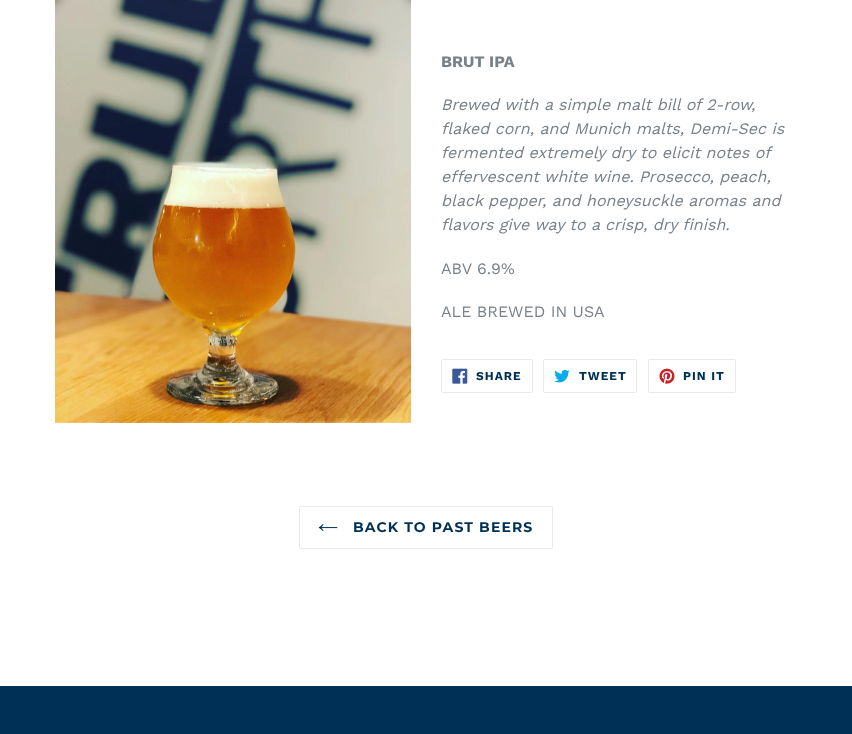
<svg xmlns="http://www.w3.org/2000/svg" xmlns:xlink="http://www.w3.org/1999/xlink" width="852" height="734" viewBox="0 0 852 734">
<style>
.cls-1{font:bold 16px Work Sans;fill:#788188}
.cls-2{font:italic 16px Work Sans;fill:#788188}
.cls-3{font:16px Work Sans;fill:#788188}
.cls-4{font:bold 12px Work Sans;letter-spacing:1px;fill:#003056}
.cls-5{font:100 14px Montserrat;letter-spacing:1.1px;fill:#003056}
</style>
<rect width="100%" height="100%" fill="#ffffff"/>
<image xlink:href="image0.png" x="55" y="0" width="356" height="423"/>
<rect fill="none" stroke="#e8e9eb" x="441.5" y="359.5" width="91" height="33" rx="1.5"/>
<image xlink:href="image1.png" x="452" y="368" width="16" height="16"/>
<rect fill="none" stroke="#e8e9eb" x="543.5" y="359.5" width="93" height="33" rx="1.5"/>
<image xlink:href="image2.png" x="554" y="369" width="16" height="14"/>
<rect fill="none" stroke="#e8e9eb" x="648.5" y="359.5" width="87" height="33" rx="1.5"/>
<image xlink:href="image3.png" x="659" y="368" width="16" height="16"/>
<rect fill="none" stroke="#e8e9eb" x="299.5" y="506.5" width="253" height="42" rx="1.5"/>
<image xlink:href="image4.png" x="318" y="524" width="20" height="8"/>
<rect fill="#003056" x="0" y="686" width="852" height="48"/>
<text class="cls-1" x="441" y="67">BRUT IPA</text>
<text class="cls-2"><tspan x="441" y="110">Brewed with a simple malt bill of 2-row,</tspan><tspan x="441" y="134">flaked corn, and Munich malts, Demi-Sec is</tspan><tspan x="441" y="158">fermented extremely dry to elicit notes of</tspan><tspan x="441" y="182">effervescent white wine. Prosecco, peach,</tspan><tspan x="441" y="206">black pepper, and honeysuckle aromas and</tspan><tspan x="441" y="230">flavors give way to a crisp, dry finish.</tspan></text>
<text class="cls-3" x="441" y="274">ABV 6.9%</text>
<text class="cls-3" x="441" y="317">ALE BREWED IN USA</text>
<text class="cls-4" x="476" y="380">SHARE</text>
<text class="cls-4" x="579" y="380">TWEET</text>
<text class="cls-4" x="683" y="380">PIN IT</text>
<text class="cls-5" x="353" y="532">BACK TO PAST BEERS</text>
</svg>
